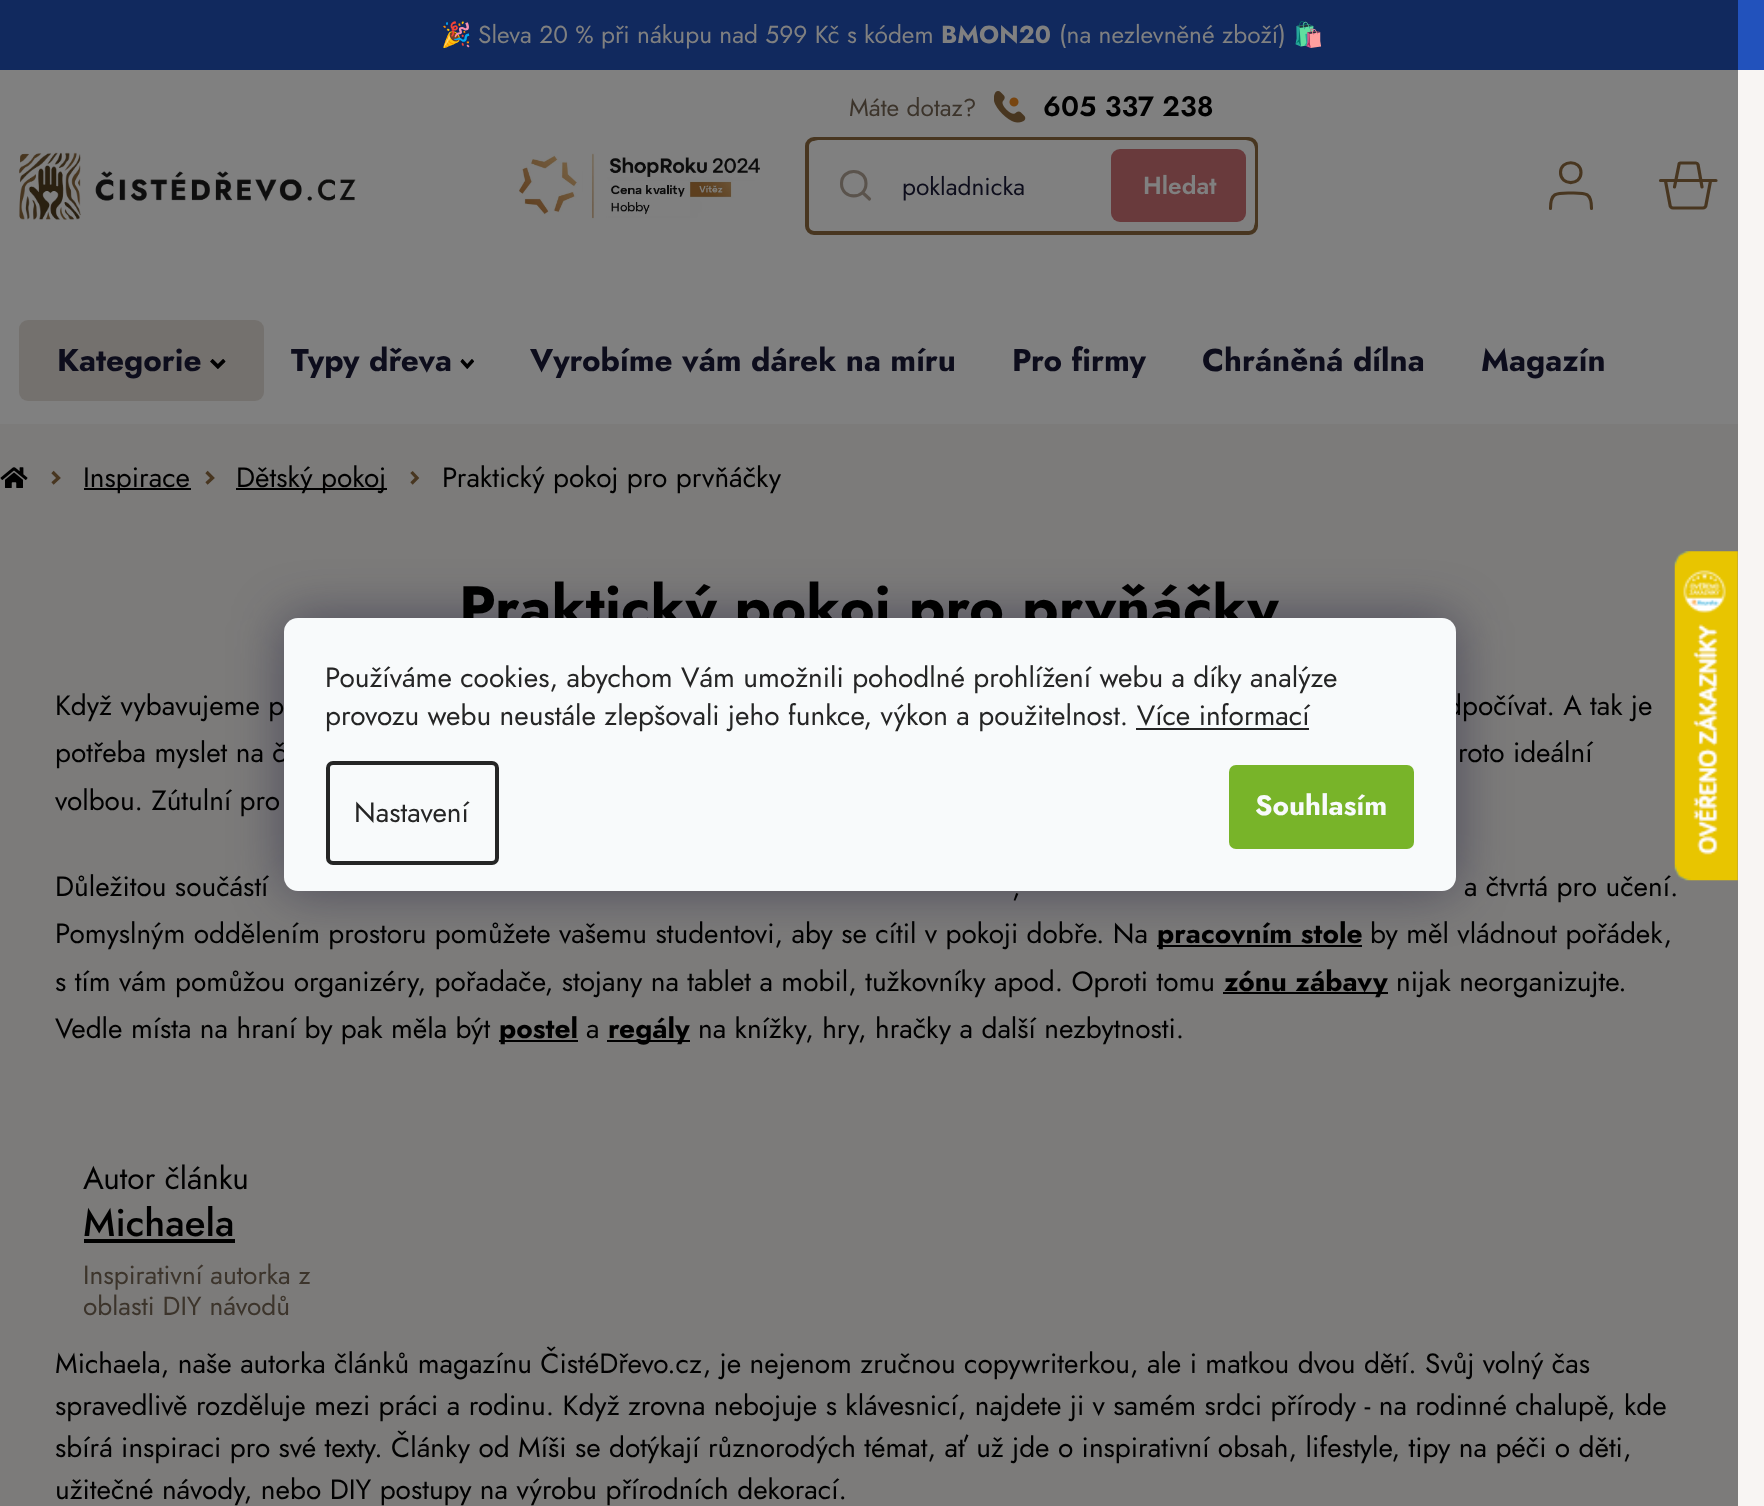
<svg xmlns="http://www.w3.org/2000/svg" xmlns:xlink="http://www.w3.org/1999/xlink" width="1764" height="1506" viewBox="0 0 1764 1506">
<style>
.cls-1{font:24.5px Noto Color Emoji;fill:#808080}
.cls-2{font:24.5px Jost;fill:#808080}
.cls-3{font:bold 24.5px Jost;fill:#808080}
.cls-4{font:24.5px Jost;fill:#3c342b}
.cls-5{font:600 28px Jost;fill:#000000}
.cls-6{font:24.5px Jost;fill:#0d0d1c}
.cls-7{font:600 24.5px Jost;fill:#808080}
.cls-8{font:bold 31.5px Jost;fill:#0d0d1c}
.cls-9{font:28px Jost;fill:#000000}
.cls-10{font:bold 59.5px Jost;fill:#000000}
.cls-11{font:bold 28px Jost;fill:#000000}
.cls-12{font:31.5px Jost;fill:#000000}
.cls-13{font:500 38.5px Jost;fill:#000000}
.cls-14{font:26.25px Jost;fill:#3c342b}
.cls-15{font:28px Jost;fill:#252525}
.cls-16{font:bold 28px Jost;fill:#f8fafb}
</style>
<rect width="100%" height="100%" fill="#f8f5f3"/>
<rect fill="#7c7b7a" x="0" y="424" width="1738" height="1082"/>
<rect fill="#2252bc" x="1738" y="0" width="26" height="70"/>
<rect fill="#11295e" x="0" y="0" width="1738" height="70"/>
<rect fill="#808080" x="0" y="70" width="1738" height="354"/>
<image xlink:href="image0.png" x="19" y="152" width="337" height="68"/>
<image xlink:href="image1.png" x="519" y="153" width="241" height="66"/>
<rect fill="none" stroke="#483620" stroke-width="4" x="807" y="139" width="449" height="94" rx="7"/>
<image xlink:href="image2.png" x="994" y="91" width="32" height="32"/>
<rect fill="#808080" x="809" y="140" width="446" height="91" rx="9"/>
<path fill="none" stroke="#5a534c" stroke-width="3.1" stroke-linecap="round" stroke-linejoin="round" d="M866 183.5C866 200 841.5 200 841.5 183.5C841.5 167.5 866 167.5 866 183.5ZM869.5 199L862.5 192.5"/>
<rect fill="#693a3c" x="1111" y="149" width="135" height="73" rx="9"/>
<path fill="none" stroke="#483620" stroke-width="3.1" stroke-linecap="round" stroke-linejoin="round" d="M1591.5 208.5C1591.5 192 1585.5 193 1571 193C1556.5 193 1550.5 192 1550.5 208.5M1581 172.5C1581 186 1560.5 186 1560.5 172.5C1560.5 159.5 1581 159.5 1581 172.5Z"/>
<path fill="none" stroke="#483620" stroke-width="3.2" stroke-linecap="round" d="M1660.5 180.5H1716M1710.5 181L1706 205C1706 206.5 1704.5 208 1703 208H1673C1671.5 208 1670 206.5 1670 205L1665.5 181M1674.5 187L1679 164.5C1679 163.5 1679.5 163 1680.5 163H1696C1697 163 1697.5 163 1698 164.5L1702 187"/>
<rect fill="#74716e" x="19" y="320" width="245" height="81" rx="9"/>
<image xlink:href="image3.png" x="210" y="359" width="16" height="10"/>
<image xlink:href="image4.png" x="460" y="359" width="14" height="10"/>
<image xlink:href="image5.png" x="0" y="467" width="28" height="21"/>
<path fill="none" stroke="#483620" stroke-width="3.3" d="M52.5 472L58.5 478L52.5 483.5"/>
<rect fill="#000000" x="84" y="488" width="107" height="2"/>
<path fill="none" stroke="#483620" stroke-width="3.3" d="M206.5 472L212.5 478L206.5 483.5"/>
<rect fill="#000000" x="236" y="488" width="151" height="2"/>
<path fill="none" stroke="#483620" stroke-width="3.3" d="M411.5 472L417 478L411.5 483.5"/>
<rect fill="#000000" x="1157" y="945" width="205" height="2"/>
<rect fill="#000000" x="1223" y="992" width="165" height="2"/>
<rect fill="#000000" x="499" y="1040" width="79" height="2"/>
<rect fill="#000000" x="607" y="1040" width="83" height="2"/>
<rect fill="#000000" x="84" y="1239" width="151" height="4"/>
<rect fill="#1b1939" fill-opacity="0.5" filter="blur(26px)" x="284" y="618" width="1172" height="273" rx="14"/>
<text class="cls-1" x="441" y="43">🎉</text>
<text class="cls-2" x="478" y="43">Sleva 20 % při nákupu nad 599 Kč s kódem</text>
<text class="cls-3" x="941" y="43">BMON20</text>
<text class="cls-2" x="1059" y="43">(na nezlevněné zboží)</text>
<text class="cls-1" x="1293" y="43">🛍️</text>
<text class="cls-4" x="849" y="116">Máte dotaz?</text>
<text class="cls-5" x="1043" y="116">605 337 238</text>
<text class="cls-6" x="902" y="195">pokladnicka</text>
<text class="cls-7" x="1143" y="194">Hledat</text>
<text class="cls-8" x="57" y="371">Kategorie</text>
<text class="cls-8" x="291" y="371">Typy dřeva</text>
<text class="cls-8" x="530" y="371">Vyrobíme vám dárek na míru</text>
<text class="cls-8" x="1012" y="371">Pro firmy</text>
<text class="cls-8" x="1202" y="371">Chráněná dílna</text>
<text class="cls-8" x="1481" y="371">Magazín</text>
<text class="cls-9" x="83" y="487">Inspirace</text>
<text class="cls-9" x="236" y="487">Dětský pokoj</text>
<text class="cls-9" x="442" y="487">Praktický pokoj pro prvňáčky</text>
<text class="cls-10" x="459" y="628">Praktický pokoj pro prvňáčky</text>
<text class="cls-9" x="55" y="715">Když vybavujeme p</text>
<text class="cls-9" x="1446" y="715">dpočívat. A tak je</text>
<text class="cls-9" x="55" y="762">potřeba myslet na č</text>
<text class="cls-9" x="1458" y="762">roto ideální</text>
<text class="cls-9" x="55" y="810">volbou. Zútulní pro</text>
<text class="cls-9" x="55" y="896">Důležitou součástí</text>
<text class="cls-9" x="1012" y="896">,</text>
<text class="cls-9" x="1464" y="896">a čtvrtá pro učení.</text>
<text class="cls-9" x="55" y="943">Pomyslným oddělením prostoru pomůžete vašemu studentovi, aby se cítil v pokoji dobře. Na</text>
<text class="cls-11" x="1157" y="943">pracovním stole</text>
<text class="cls-9" x="1370" y="943">by měl vládnout pořádek,</text>
<text class="cls-9" x="55" y="991">s tím vám pomůžou organizéry, pořadače, stojany na tablet a mobil, tužkovníky apod. Oproti tomu</text>
<text class="cls-11" x="1224" y="991">zónu zábavy</text>
<text class="cls-9" x="1396" y="991">nijak neorganizujte.</text>
<text class="cls-9" x="55" y="1038">Vedle místa na hraní by pak měla být</text>
<text class="cls-11" x="499" y="1038">postel</text>
<text class="cls-9" x="586" y="1038">a</text>
<text class="cls-11" x="608" y="1038">regály</text>
<text class="cls-9" x="698" y="1038">na knížky, hry, hračky a další nezbytnosti.</text>
<text class="cls-12" x="83" y="1189">Autor článku</text>
<text class="cls-13" x="83" y="1236">Michaela</text>
<text class="cls-14"><tspan x="83" y="1284">Inspirativní autorka z</tspan><tspan x="83" y="1315">oblasti DIY návodů</tspan></text>
<text class="cls-9"><tspan x="55" y="1373">Michaela, naše autorka článků magazínu ČistéDřevo.cz, je nejenom zručnou copywriterkou, ale i matkou dvou dětí. Svůj volný čas</tspan><tspan x="55" y="1415">spravedlivě rozděluje mezi práci a rodinu. Když zrovna nebojuje s klávesnicí, najdete ji v samém srdci přírody - na rodinné chalupě, kde</tspan><tspan x="55" y="1457">sbírá inspiraci pro své texty. Články od Míši se dotýkají různorodých témat, ať už jde o inspirativní obsah, lifestyle, tipy na péči o děti,</tspan><tspan x="55" y="1499">užitečné návody, nebo DIY postupy na výrobu přírodních dekorací.</tspan></text>
<image xlink:href="image6.png" x="1674" y="551" width="64" height="330"/>
<rect fill="#f8fafb" x="284" y="618" width="1172" height="273" rx="14"/>
<text class="cls-15"><tspan x="325" y="687">Používáme cookies, abychom Vám umožnili pohodlné prohlížení webu a díky analýze</tspan><tspan x="325" y="725">provozu webu neustále zlepšovali jeho funkce, výkon a použitelnost. Více informací</tspan></text>
<rect fill="#252525" x="1136" y="728" width="173" height="2"/>
<rect fill="none" stroke="#252525" stroke-width="4" x="328" y="763" width="169" height="100" rx="5"/>
<text class="cls-15" x="354" y="822">Nastavení</text>
<rect fill="#78b429" x="1229" y="765" width="185" height="84" rx="7"/>
<text class="cls-16" x="1255" y="815">Souhlasím</text>
</svg>
